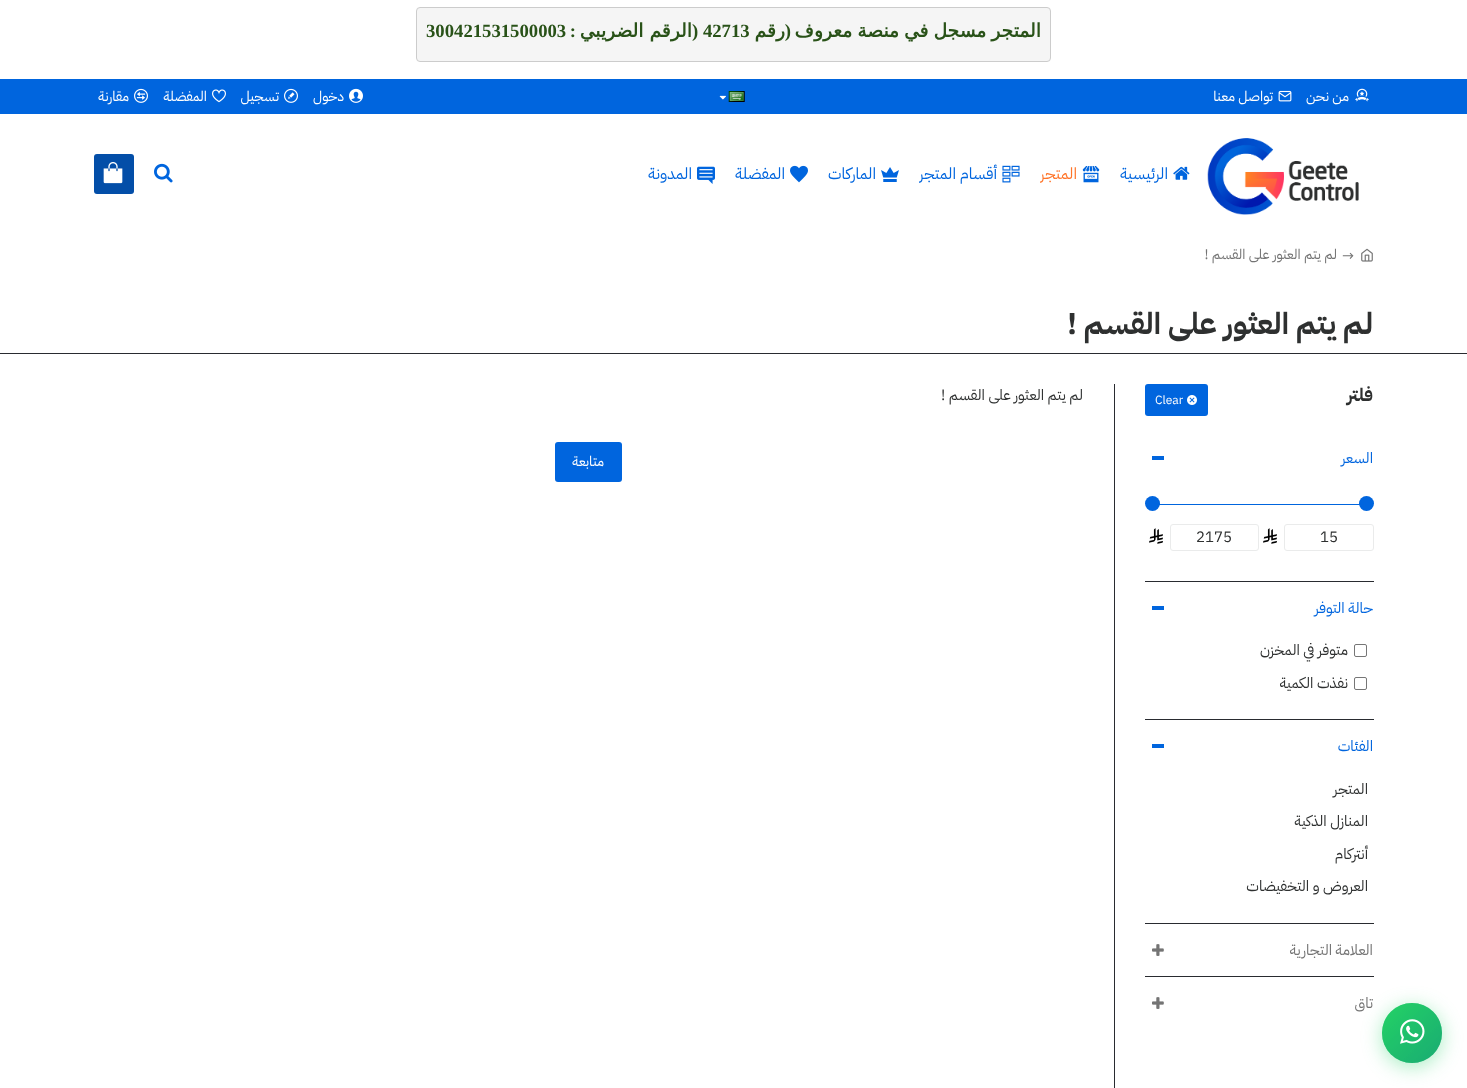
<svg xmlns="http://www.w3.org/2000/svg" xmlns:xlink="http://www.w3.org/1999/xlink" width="1467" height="1088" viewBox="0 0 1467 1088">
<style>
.cls-1{font:bold 18.7px DejaVu Sans;direction:rtl;fill:#295218}
.cls-2{font:bold 18.7px Liberation Serif;direction:rtl;fill:#295218}
.cls-3{font:bold 18.7px Liberation Serif;fill:#295218}
.cls-4{font:14px IBM Plex Sans Arabic;direction:rtl;fill:#ffffff}
.cls-5{font:16px IBM Plex Sans Arabic;direction:rtl;fill:#0065de}
.cls-6{font:16px IBM Plex Sans Arabic;direction:rtl;fill:#ff752a}
.cls-7{font:15px IBM Plex Sans Arabic;fill:#747474}
.cls-8{font:14px IBM Plex Sans Arabic;direction:rtl;fill:#747474}
.cls-9{font:bold 30px IBM Plex Sans Arabic;direction:rtl;fill:#2e3030}
.cls-10{font:bold 18px IBM Plex Sans Arabic;direction:rtl;fill:#2e3030}
.cls-11{font:12px IBM Plex Sans Arabic;fill:#ffffff}
.cls-12{font:15px IBM Plex Sans Arabic;direction:rtl;fill:#0065de}
.cls-13{font:15px IBM Plex Sans Arabic;fill:#2e3030}
.cls-14{font:15px IBM Plex Sans Arabic;direction:rtl;fill:#2e3030}
.cls-15{font:15px IBM Plex Sans Arabic;direction:rtl;fill:#747474}
</style>
<defs>
<linearGradient id="g1" gradientUnits="userSpaceOnUse" x1="1382" y1="1003" x2="1442" y2="1063"><stop offset="0" stop-color="#25d366"/><stop offset="1" stop-color="#128c7e"/></linearGradient>
<clipPath id="clip1"><rect x="1040" y="162" width="37" height="24"/></clipPath>
<clipPath id="clip2"><rect x="919" y="162" width="78" height="24"/></clipPath>
</defs>
<rect width="100%" height="100%" fill="#ffffff"/>
<rect fill="#f5f5f5" stroke="#cccccc" x="416.5" y="7.5" width="634" height="54" rx="3.5"/>
<rect fill="#0065de" x="0" y="79" width="1467" height="35"/>
<image xlink:href="image0.png" x="1355" y="88" width="14" height="14"/>
<image xlink:href="image1.png" x="1278" y="90" width="14" height="12"/>
<image xlink:href="image2.png" x="728" y="91" width="17" height="11"/>
<image xlink:href="image3.png" x="719" y="95" width="7" height="5"/>
<image xlink:href="image4.png" x="349" y="88" width="14" height="15"/>
<image xlink:href="image5.png" x="284" y="88" width="14" height="15"/>
<image xlink:href="image6.png" x="212" y="89" width="14" height="14"/>
<image xlink:href="image7.png" x="134" y="88" width="14" height="15"/>
<image xlink:href="image8.png" x="1207" y="138" width="152" height="77"/>
<image xlink:href="image9.png" x="1173" y="166" width="17" height="14"/>
<image xlink:href="image10.png" x="1082" y="166" width="18" height="17"/>
<image xlink:href="image11.png" x="1002" y="165" width="18" height="18"/>
<image xlink:href="image12.png" x="881" y="167" width="18" height="15"/>
<image xlink:href="image13.png" x="790" y="165" width="18" height="18"/>
<image xlink:href="image14.png" x="697" y="166" width="18" height="18"/>
<image xlink:href="image15.png" x="154" y="163" width="19" height="20"/>
<rect fill="#034ea8" x="94" y="154" width="40" height="40" rx="3"/>
<image xlink:href="image16.png" x="103" y="162" width="20" height="22"/>
<image xlink:href="image17.png" x="1361" y="248" width="12" height="14"/>
<rect fill="#292b30" x="0" y="353" width="1467" height="1"/>
<rect fill="#292b30" x="1114" y="384" width="1" height="704"/>
<rect fill="#0065de" x="1145" y="384" width="63" height="32" rx="3"/>
<image xlink:href="image18.png" x="1187" y="395" width="10" height="10"/>
<rect fill="#0065de" x="1152" y="456" width="12" height="4"/>
<path fill="#0065de" d="M1157 504H1365C1368 504 1361 505 1361 505H1157L1152 504Z"/>
<circle fill="#0065de" cx="1366.5" cy="503.5" r="7.5"/>
<circle fill="#0065de" cx="1152.5" cy="503.5" r="7.5"/>
<rect fill="none" stroke="#eaebeb" x="1284.5" y="524.5" width="89" height="26" rx="2.5"/>
<image xlink:href="image19.png" x="1263" y="528" width="14" height="16"/>
<rect fill="none" stroke="#eaebeb" x="1170.5" y="524.5" width="88" height="26" rx="2.5"/>
<image xlink:href="image19.png" x="1149" y="528" width="14" height="16"/>
<rect fill="#292b30" x="1145" y="581" width="229" height="1"/>
<rect fill="#0065de" x="1152" y="606" width="12" height="4"/>
<rect fill="none" stroke="#767676" x="1354.5" y="644.5" width="12" height="12" rx="1.5"/>
<rect fill="none" stroke="#767676" x="1354.5" y="677.5" width="12" height="12" rx="1.5"/>
<rect fill="#292b30" x="1145" y="719" width="229" height="1"/>
<rect fill="#0065de" x="1152" y="744" width="12" height="4"/>
<rect fill="#292b30" x="1145" y="923" width="229" height="1"/>
<image xlink:href="image20.png" x="1152" y="944" width="12" height="12"/>
<rect fill="#292b30" x="1145" y="976" width="229" height="1"/>
<image xlink:href="image20.png" x="1152" y="997" width="12" height="12"/>
<rect fill="#0065de" x="555" y="442" width="67" height="40" rx="3"/>
<rect fill="#25d366" fill-opacity="0.4" filter="blur(10px)" x="1382" y="1007" width="60" height="60" rx="30"/>
<circle fill="url(#g1)" cx="1412" cy="1033" r="30"/>
<circle fill="#25d366" fill-opacity="0.3" cx="1412" cy="1033" r="30"/>
<circle fill="#25d366" fill-opacity="0.2" cx="1412" cy="1033" r="30"/>
<image xlink:href="image21.png" x="1400" y="1019" width="25" height="25"/>
<text class="cls-1" x="1041" y="37" word-spacing="-1">المتجر مسجل في منصة معروف</text>
<text class="cls-2" x="791" y="37">(</text>
<text class="cls-1" x="785" y="37">رقم</text>
<text class="cls-3" x="692" y="37">) 42713</text>
<text class="cls-1" x="692" y="37">الرقم الضريبي</text>
<text class="cls-2" x="576" y="37">:</text>
<text class="cls-3" x="426" y="37">300421531500003</text>
<text class="cls-4" x="1349" y="101">من نحن</text>
<text class="cls-4" x="1273" y="101">تواصل معنا</text>
<text class="cls-4" x="344" y="101">دخول</text>
<text class="cls-4" x="279" y="101">تسجيل</text>
<text class="cls-4" x="207" y="101">المفضلة</text>
<text class="cls-4" x="129" y="101">مقارنة</text>
<text class="cls-5" x="1168" y="179">الرئيسية</text>
<g clip-path="url(#clip1)">
<text class="cls-6" x="1077" y="179">المتجر</text>
</g>
<g clip-path="url(#clip2)">
<text class="cls-5" x="997" y="179">أقسام المتجر</text>
</g>
<text class="cls-5" x="876" y="179">الماركات</text>
<text class="cls-5" x="785" y="179">المفضلة</text>
<text class="cls-5" x="692" y="179">المدونة</text>
<text class="cls-7" x="1342" y="261">→</text>
<text class="cls-8" x="1337" y="259">لم يتم العثور على القسم !</text>
<text class="cls-9" x="1373" y="334">لم يتم العثور على القسم !</text>
<text class="cls-10" x="1373" y="401">فلتر</text>
<text class="cls-11" x="1155" y="404">Clear</text>
<text class="cls-12" x="1373" y="463">السعر</text>
<text class="cls-13" x="1320" y="542">15</text>
<text class="cls-13" x="1196" y="542">2175</text>
<text class="cls-12" x="1373" y="613">حالة التوفر</text>
<text class="cls-14" x="1348" y="655">متوفر في المخزن</text>
<text class="cls-14" x="1348" y="688">نفذت الكمية</text>
<text class="cls-12" x="1373" y="751">الفئات</text>
<text class="cls-14" x="1368" y="794">المتجر</text>
<text class="cls-14" x="1368" y="826">المنازل الذكية</text>
<text class="cls-14" x="1368" y="859">أنتركام</text>
<text class="cls-14" x="1368" y="891">العروض و التخفيضات</text>
<text class="cls-15" x="1373" y="955">العلامة التجارية</text>
<text class="cls-15" x="1373" y="1008">تاق</text>
<text class="cls-14" x="1083" y="400">لم يتم العثور على القسم !</text>
<text class="cls-4" x="604" y="466">متابعة</text>
</svg>
